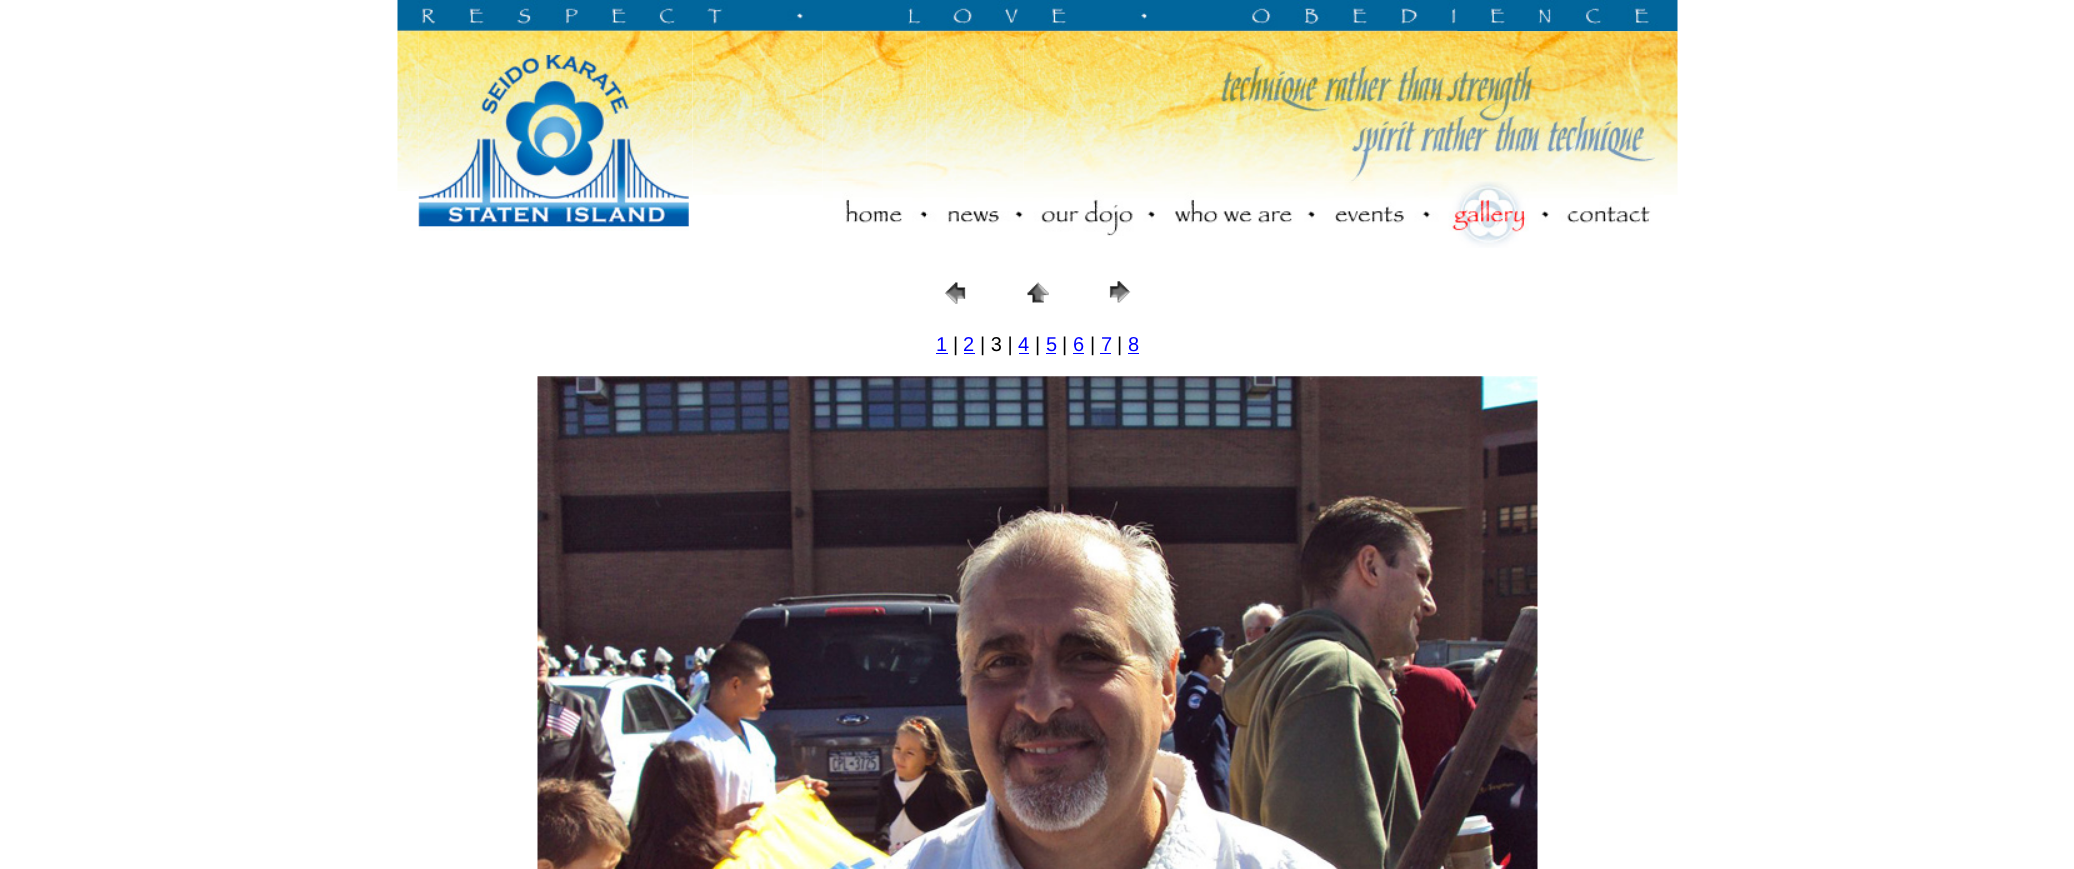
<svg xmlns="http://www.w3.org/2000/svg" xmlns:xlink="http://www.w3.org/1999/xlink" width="2074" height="869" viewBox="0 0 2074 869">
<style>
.cls-1{font:20px Liberation Sans;fill:#0000ff}
.cls-2{font:20px Liberation Sans;fill:#000000}
</style>
<rect width="100%" height="100%" fill="#ffffff"/>
<image xlink:href="image0.png" x="397" y="0" width="1281" height="32"/>
<image xlink:href="image1.png" x="397" y="31" width="22" height="160"/>
<image xlink:href="image2.png" x="418" y="31" width="275" height="200"/>
<image xlink:href="image3.png" x="692" y="31" width="131" height="151"/>
<image xlink:href="image4.png" x="822" y="31" width="105" height="151"/>
<image xlink:href="image5.png" x="926" y="31" width="98" height="151"/>
<image xlink:href="image6.png" x="1023" y="31" width="132" height="151"/>
<image xlink:href="image7.png" x="1155" y="31" width="523" height="151"/>
<image xlink:href="image8.png" x="693" y="181" width="130" height="14"/>
<image xlink:href="image9.png" x="823" y="181" width="104" height="42"/>
<image xlink:href="image10.png" x="926" y="181" width="98" height="44"/>
<image xlink:href="image11.png" x="1024" y="181" width="131" height="55"/>
<image xlink:href="image12.png" x="1155" y="181" width="160" height="43"/>
<image xlink:href="image13.png" x="1315" y="181" width="114" height="43"/>
<image xlink:href="image14.png" x="1428" y="181" width="122" height="67"/>
<image xlink:href="image15.png" x="1550" y="181" width="104" height="43"/>
<image xlink:href="image16.png" x="1654" y="181" width="24" height="14"/>
<image xlink:href="image17.png" x="944" y="282" width="22" height="22"/>
<image xlink:href="image18.png" x="1027" y="282" width="22" height="21"/>
<image xlink:href="image19.png" x="1109" y="281" width="22" height="22"/>
<rect fill="#0000ff" x="936" y="353" width="12" height="1"/>
<rect fill="#0000ff" x="964" y="353" width="11" height="1"/>
<rect fill="#0000ff" x="1019" y="353" width="10" height="1"/>
<rect fill="#0000ff" x="1046" y="353" width="10" height="1"/>
<rect fill="#0000ff" x="1073" y="353" width="11" height="1"/>
<rect fill="#0000ff" x="1100" y="353" width="11" height="1"/>
<rect fill="#0000ff" x="1128" y="353" width="11" height="1"/>
<image xlink:href="image20.png" x="537" y="376" width="1001" height="493"/>
<text class="cls-1" x="936" y="351">1</text>
<text class="cls-2" x="953" y="351">|</text>
<text class="cls-1" x="963" y="351">2</text>
<text class="cls-2" x="980" y="351">| 3 |</text>
<text class="cls-1" x="1018" y="351">4</text>
<text class="cls-2" x="1035" y="351">|</text>
<text class="cls-1" x="1046" y="351">5</text>
<text class="cls-2" x="1062" y="351">|</text>
<text class="cls-1" x="1073" y="351">6</text>
<text class="cls-2" x="1090" y="351">|</text>
<text class="cls-1" x="1101" y="351">7</text>
<text class="cls-2" x="1117" y="351">|</text>
<text class="cls-1" x="1128" y="351">8</text>
</svg>
